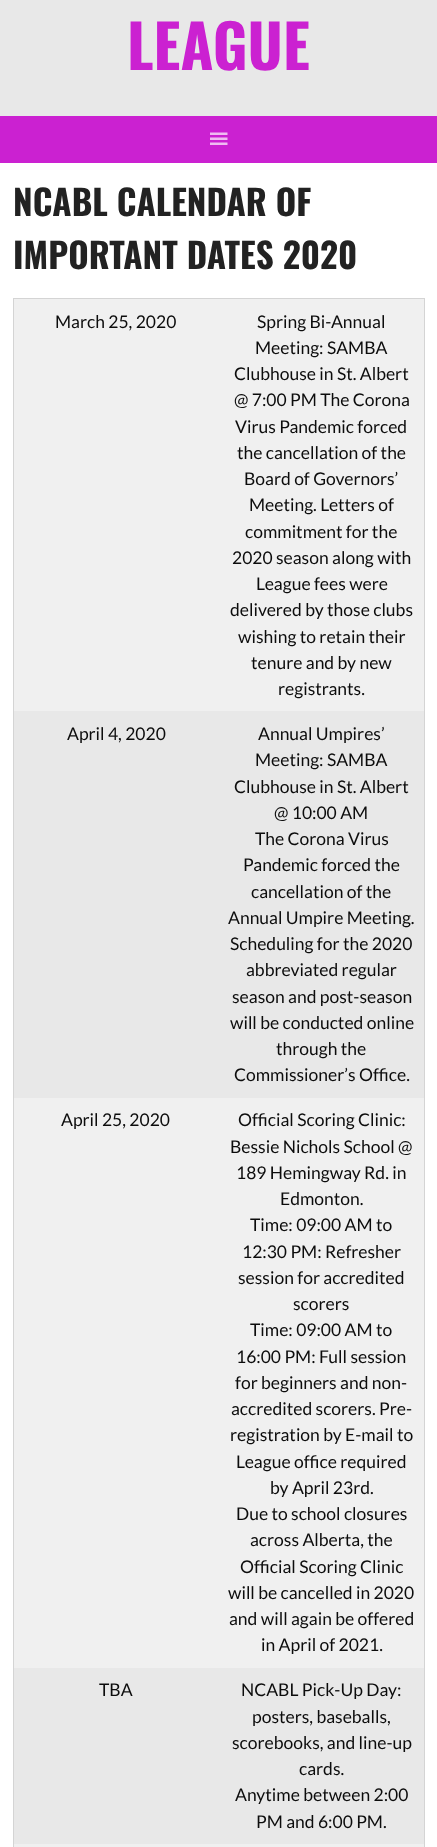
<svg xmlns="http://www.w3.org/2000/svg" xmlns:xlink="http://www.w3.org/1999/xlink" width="437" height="1847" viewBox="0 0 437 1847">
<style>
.cls-1{font:bold 60px Oswald;fill:#cb21d1}
.cls-2{font:bold 35px Oswald;fill:#222222}
.cls-3{font:17.5px Lato;fill:#0c0c0c}
</style>
<rect width="100%" height="100%" fill="#e8e8e8"/>
<rect fill="#cb21d1" x="0" y="116" width="437" height="47"/>
<image xlink:href="image0.png" x="210" y="132" width="18" height="13"/>
<rect fill="#ffffff" x="0" y="163" width="437" height="1684"/>
<rect fill="#e8e8e8" x="14" y="711" width="410" height="1133"/>
<rect fill="#d4d4d4" x="13" y="298" width="412" height="1"/>
<rect fill="#f0f0f0" x="14" y="1844" width="411" height="3"/>
<rect fill="#d4d4d4" x="424" y="298" width="1" height="1549"/>
<rect fill="#d4d4d4" x="13" y="298" width="1" height="1549"/>
<rect fill="#f0f0f0" x="14" y="299" width="410" height="412"/>
<rect fill="#f0f0f0" x="14" y="1098" width="410" height="570"/>
<text class="cls-1" x="127" y="70">LEAGUE</text>
<text class="cls-2"><tspan x="13" y="216">NCABL CALENDAR OF</tspan><tspan x="13" y="269">IMPORTANT DATES 2020</tspan></text>
<text class="cls-3" x="55" y="328">March 25, 2020</text>
<text class="cls-3" x="257" y="328">Spring Bi-Annual</text>
<text class="cls-3" x="255" y="354">Meeting: SAMBA</text>
<text class="cls-3"><tspan x="234" y="380">Clubhouse in St. Albert</tspan><tspan x="234" y="406">@ 7:00 PM The Corona</tspan></text>
<text class="cls-3" x="235" y="433">Virus Pandemic forced</text>
<text class="cls-3" x="237" y="459">the cancellation of the</text>
<text class="cls-3" x="244" y="485">Board of Governors’</text>
<text class="cls-3" x="249" y="511">Meeting. Letters of</text>
<text class="cls-3" x="245" y="538">commitment for the</text>
<text class="cls-3" x="232" y="564">2020 season along with</text>
<text class="cls-3" x="256" y="590">League fees were</text>
<text class="cls-3" x="230" y="616">delivered by those clubs</text>
<text class="cls-3" x="238" y="643">wishing to retain their</text>
<text class="cls-3" x="251" y="669">tenure and by new</text>
<text class="cls-3" x="278" y="695">registrants.</text>
<text class="cls-3" x="67" y="740">April 4, 2020</text>
<text class="cls-3" x="258" y="740">Annual Umpires’</text>
<text class="cls-3" x="255" y="766">Meeting: SAMBA</text>
<text class="cls-3" x="234" y="793">Clubhouse in St. Albert</text>
<text class="cls-3" x="274" y="819">@ 10:00 AM</text>
<text class="cls-3" x="255" y="845">The Corona Virus</text>
<text class="cls-3" x="243" y="871">Pandemic forced the</text>
<text class="cls-3" x="251" y="898">cancellation of the</text>
<text class="cls-3" x="228" y="924">Annual Umpire Meeting.</text>
<text class="cls-3" x="230" y="950">Scheduling for the 2020</text>
<text class="cls-3" x="246" y="976">abbreviated regular</text>
<text class="cls-3" x="232" y="1003">season and post-season</text>
<text class="cls-3" x="230" y="1029">will be conducted online</text>
<text class="cls-3" x="276" y="1055">through the</text>
<text class="cls-3" x="234" y="1081">Commissioner’s Office.</text>
<text class="cls-3" x="61" y="1126">April 25, 2020</text>
<text class="cls-3" x="238" y="1126">Official Scoring Clinic:</text>
<text class="cls-3" x="230" y="1153">Bessie Nichols School @</text>
<text class="cls-3" x="236" y="1179">189 Hemingway Rd. in</text>
<text class="cls-3" x="280" y="1205">Edmonton.</text>
<text class="cls-3" x="250" y="1231">Time: 09:00 AM to</text>
<text class="cls-3" x="242" y="1258">12:30 PM: Refresher</text>
<text class="cls-3" x="238" y="1284">session for accredited</text>
<text class="cls-3" x="293" y="1310">scorers</text>
<text class="cls-3" x="250" y="1336">Time: 09:00 AM to</text>
<text class="cls-3" x="236" y="1363">16:00 PM: Full session</text>
<text class="cls-3" x="235" y="1389">for beginners and non-</text>
<text class="cls-3" x="231" y="1415">accredited scorers. Pre-</text>
<text class="cls-3" x="230" y="1441">registration by E-mail to</text>
<text class="cls-3" x="236" y="1468">League office required</text>
<text class="cls-3" x="270" y="1494">by April 23rd.</text>
<text class="cls-3" x="236" y="1520">Due to school closures</text>
<text class="cls-3" x="250" y="1546">across Alberta, the</text>
<text class="cls-3" x="240" y="1573">Official Scoring Clinic</text>
<text class="cls-3" x="228" y="1599">will be cancelled in 2020</text>
<text class="cls-3" x="229" y="1625">and will again be offered</text>
<text class="cls-3" x="261" y="1651">in April of 2021.</text>
<text class="cls-3" x="99" y="1696">TBA</text>
<text class="cls-3" x="241" y="1696">NCABL Pick-Up Day:</text>
<text class="cls-3" x="252" y="1723">posters, baseballs,</text>
<text class="cls-3" x="232" y="1749">scorebooks, and line-up</text>
<text class="cls-3" x="299" y="1775">cards.</text>
<text class="cls-3" x="235" y="1801">Anytime between 2:00</text>
<text class="cls-3" x="256" y="1828">PM and 6:00 PM.</text>
</svg>
